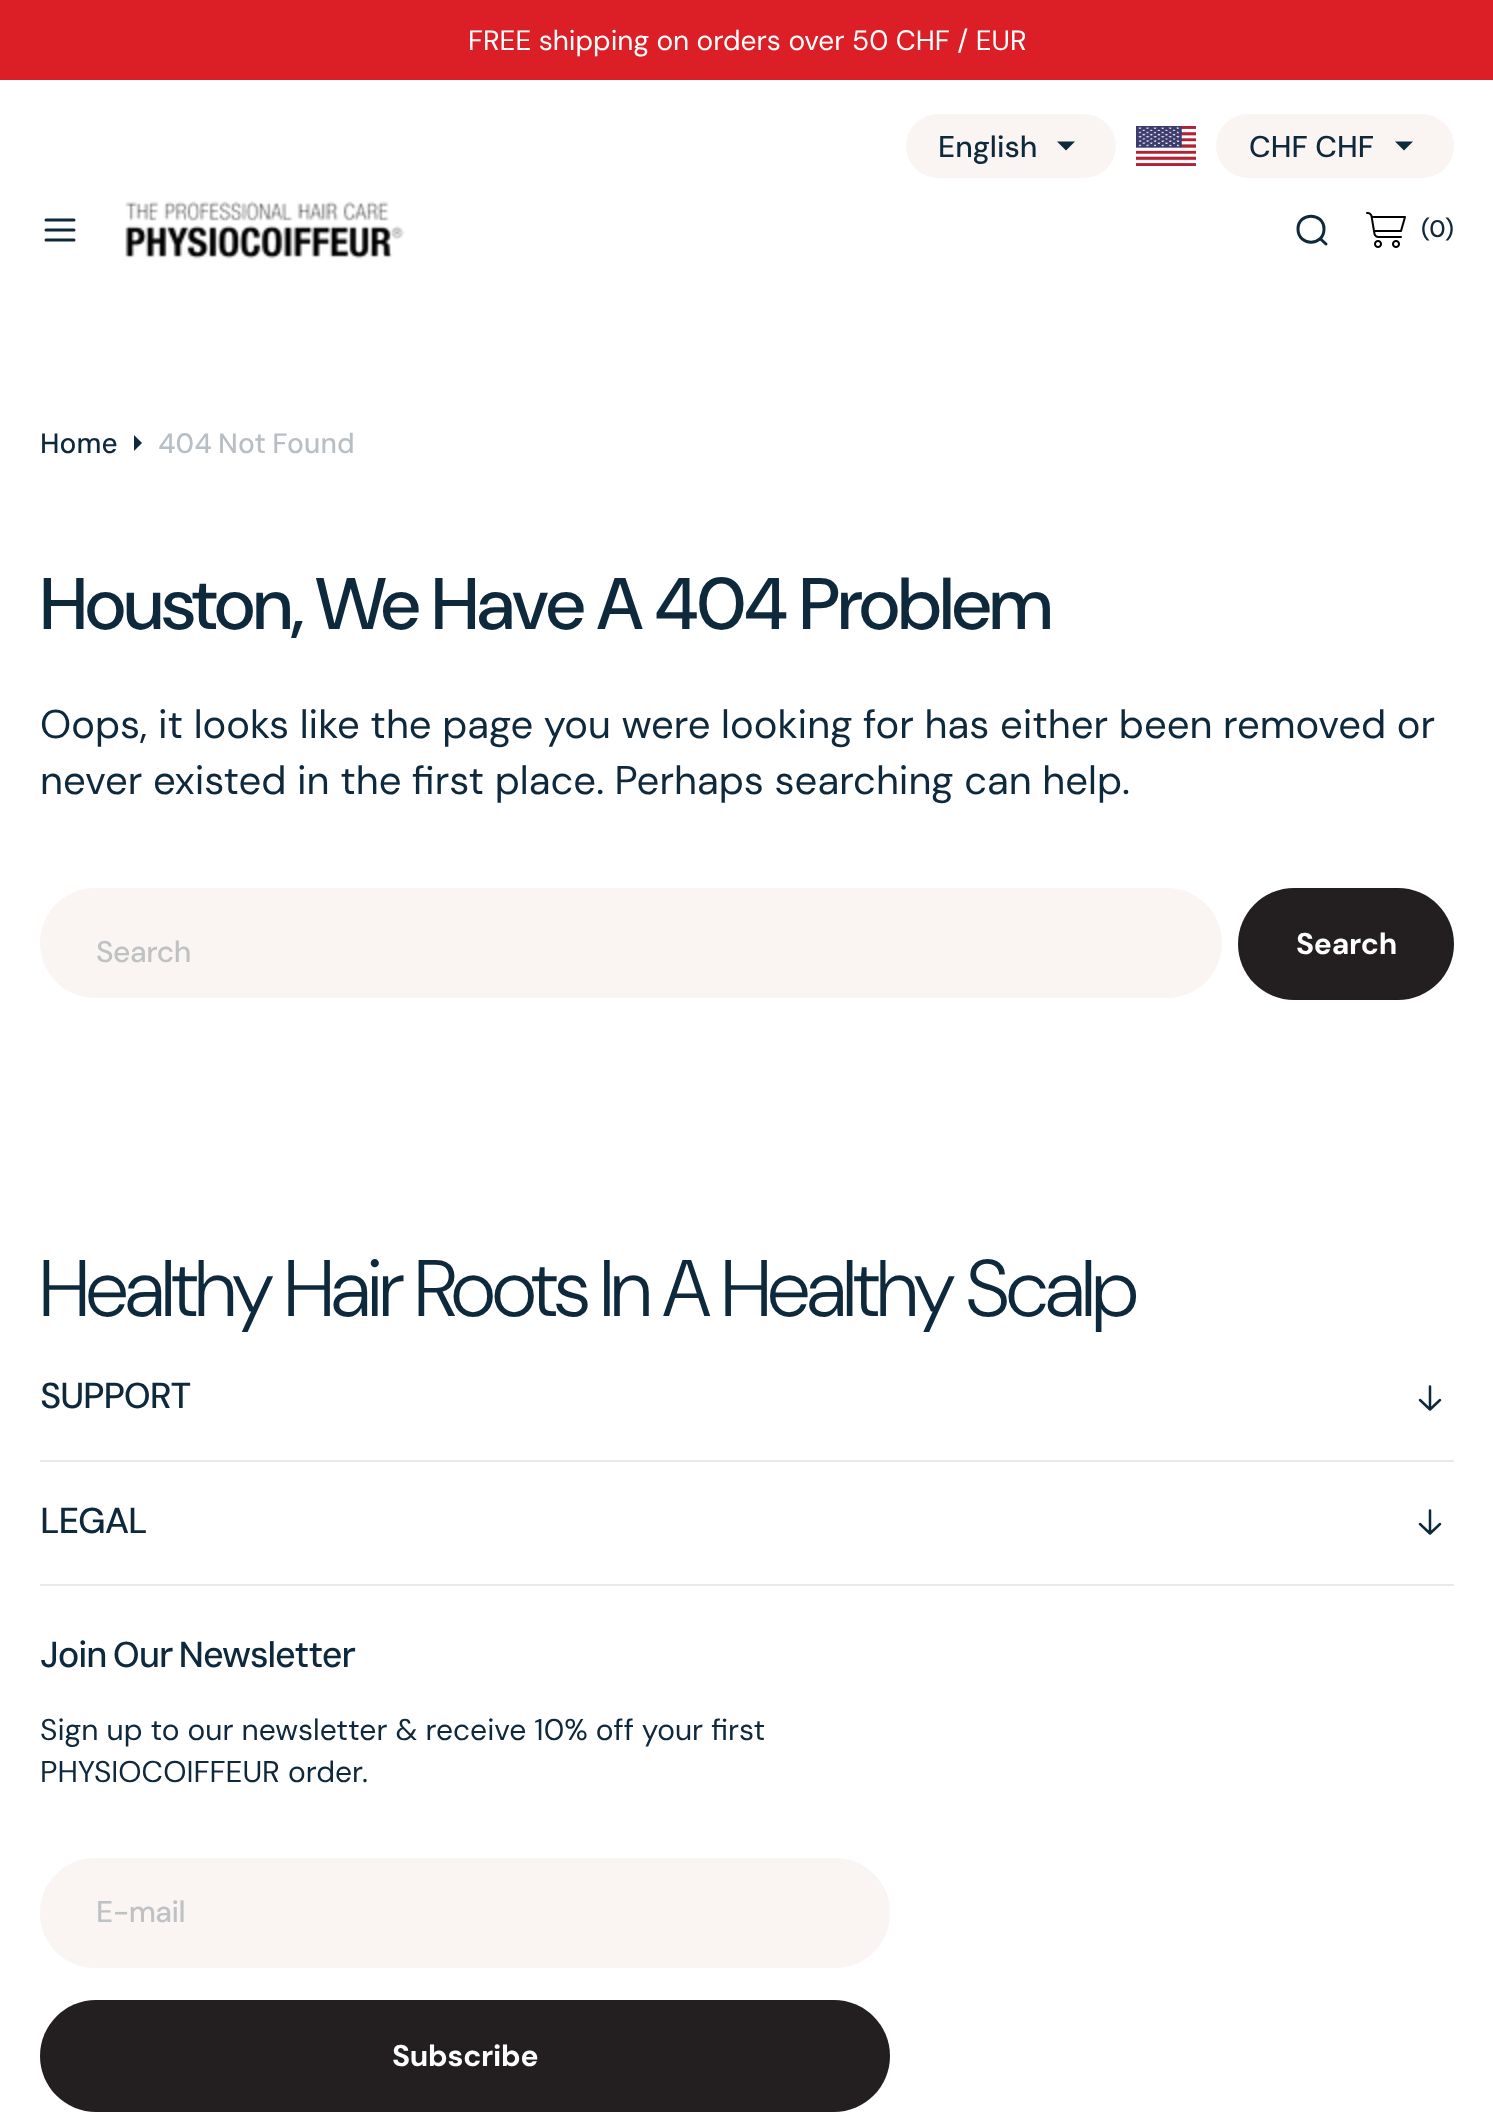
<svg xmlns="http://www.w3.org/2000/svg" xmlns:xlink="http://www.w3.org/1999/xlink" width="1493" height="2115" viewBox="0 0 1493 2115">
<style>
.cls-1{font:28px 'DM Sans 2';fill:#ffffff}
.cls-2{font:500 30px 'DM Sans 2';fill:#0e283c}
.cls-3{font:500 24px 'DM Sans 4';fill:#0e283c}
.cls-4{font:500 28px 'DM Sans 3';fill:#0e283c}
.cls-5{font:500 28px 'DM Sans 3';fill:#b7bfc5}
.cls-6{font:500 73px DM Sans;letter-spacing:-2.2px;fill:#0e283c}
.cls-7{font:40.05px DM Sans;fill:#0e283c}
.cls-8{font:500 30px 'DM Sans 2';letter-spacing:-0.5px;fill:#bfc2c5}
.cls-9{font:bold 30px DM Sans;letter-spacing:-0.25px;fill:#ffffff}
.cls-10{font:300 80px DM Sans;letter-spacing:-2.4px;fill:#0e283c}
.cls-11{font:500 36px 'DM Sans 3';letter-spacing:-1.1px;fill:#0e283c}
.cls-12{font:30px 'DM Sans 3';fill:#0e283c}
</style>
<rect width="100%" height="100%" fill="#ffffff"/>
<rect fill="#dc1f26" x="0" y="0" width="1493" height="80"/>
<rect fill="#faf5f2" x="906" y="114" width="210" height="64" rx="32"/>
<path fill="#0e283c" d="M1066 150.5L1057 141.5H1075Z"/>
<image xlink:href="image0.png" x="1136" y="126" width="60" height="40"/>
<rect fill="#faf5f2" x="1216" y="114" width="238" height="64" rx="32"/>
<path fill="#0e283c" d="M1404 150.5L1395 141.5H1413Z"/>
<path fill="none" stroke="#0e283c" stroke-width="3" stroke-linecap="round" stroke-linejoin="round" d="M46 230H74M46 220H74M46 240H74"/>
<image xlink:href="image1.png" x="125" y="201" width="280" height="58"/>
<path fill="none" stroke="#0e283c" stroke-width="3" stroke-linecap="round" d="M1320 238.5L1326 244M1324 229C1324 246.5 1298 246.5 1298 229C1298 212 1324 212 1324 229Z"/>
<image xlink:href="image2.png" x="1366" y="212" width="40" height="36"/>
<path fill="#0e283c" d="M142 443L134 451V435Z"/>
<rect fill="#faf5f2" x="40" y="888" width="1182" height="110" rx="55"/>
<rect fill="#231f20" x="1238" y="888" width="216" height="112" rx="56"/>
<rect fill="#e7eaec" x="40" y="1460" width="1414" height="2"/>
<path fill="none" stroke="#0e283c" stroke-width="2.5" stroke-linecap="round" stroke-linejoin="round" d="M1440 1400L1430 1409.5M1430 1409.5L1420 1400M1430 1409.5V1386.5"/>
<rect fill="#e7eaec" x="40" y="1584" width="1414" height="2"/>
<path fill="none" stroke="#0e283c" stroke-width="2.5" stroke-linecap="round" stroke-linejoin="round" d="M1440 1524L1430 1533.5M1430 1533.5L1420 1524M1430 1533.5V1510.5"/>
<rect fill="#faf5f2" stroke="#faf5f2" stroke-width="2" x="41" y="1859" width="848" height="108" rx="54"/>
<rect fill="#231f20" x="40" y="2000" width="850" height="112" rx="56"/>
<text class="cls-1" x="468" y="50">FREE shipping on orders over 50 CHF / EUR</text>
<text class="cls-2" x="938" y="157">English</text>
<text class="cls-2" x="1249" y="157">CHF CHF</text>
<text class="cls-3" x="1421" y="237">(0)</text>
<text class="cls-4" x="40" y="453">Home</text>
<text class="cls-5" x="158" y="453" word-spacing="-1">404 Not Found</text>
<text class="cls-6" x="40" y="629">Houston, We Have A 404 Problem</text>
<text class="cls-7"><tspan x="40" y="738">Oops, it looks like the page you were looking for has either been removed or</tspan><tspan x="40" y="794">never existed in the first place. Perhaps searching can help.</tspan></text>
<text class="cls-8" x="96" y="962">Search</text>
<text class="cls-9" x="1296" y="954">Search</text>
<text class="cls-10" x="40" y="1316">Healthy Hair Roots In A Healthy Scalp</text>
<text class="cls-11" x="40" y="1408">SUPPORT</text>
<text class="cls-11" x="40" y="1533">LEGAL</text>
<text class="cls-11" x="40" y="1667" word-spacing="-2">Join Our Newsletter</text>
<text class="cls-12"><tspan x="40" y="1740">Sign up to our newsletter &amp; receive 10% off your first</tspan><tspan x="40" y="1782">PHYSIOCOIFFEUR order.</tspan></text>
<text class="cls-8" x="96" y="1922">E-mail</text>
<text class="cls-9" x="392" y="2066">Subscribe</text>
</svg>
